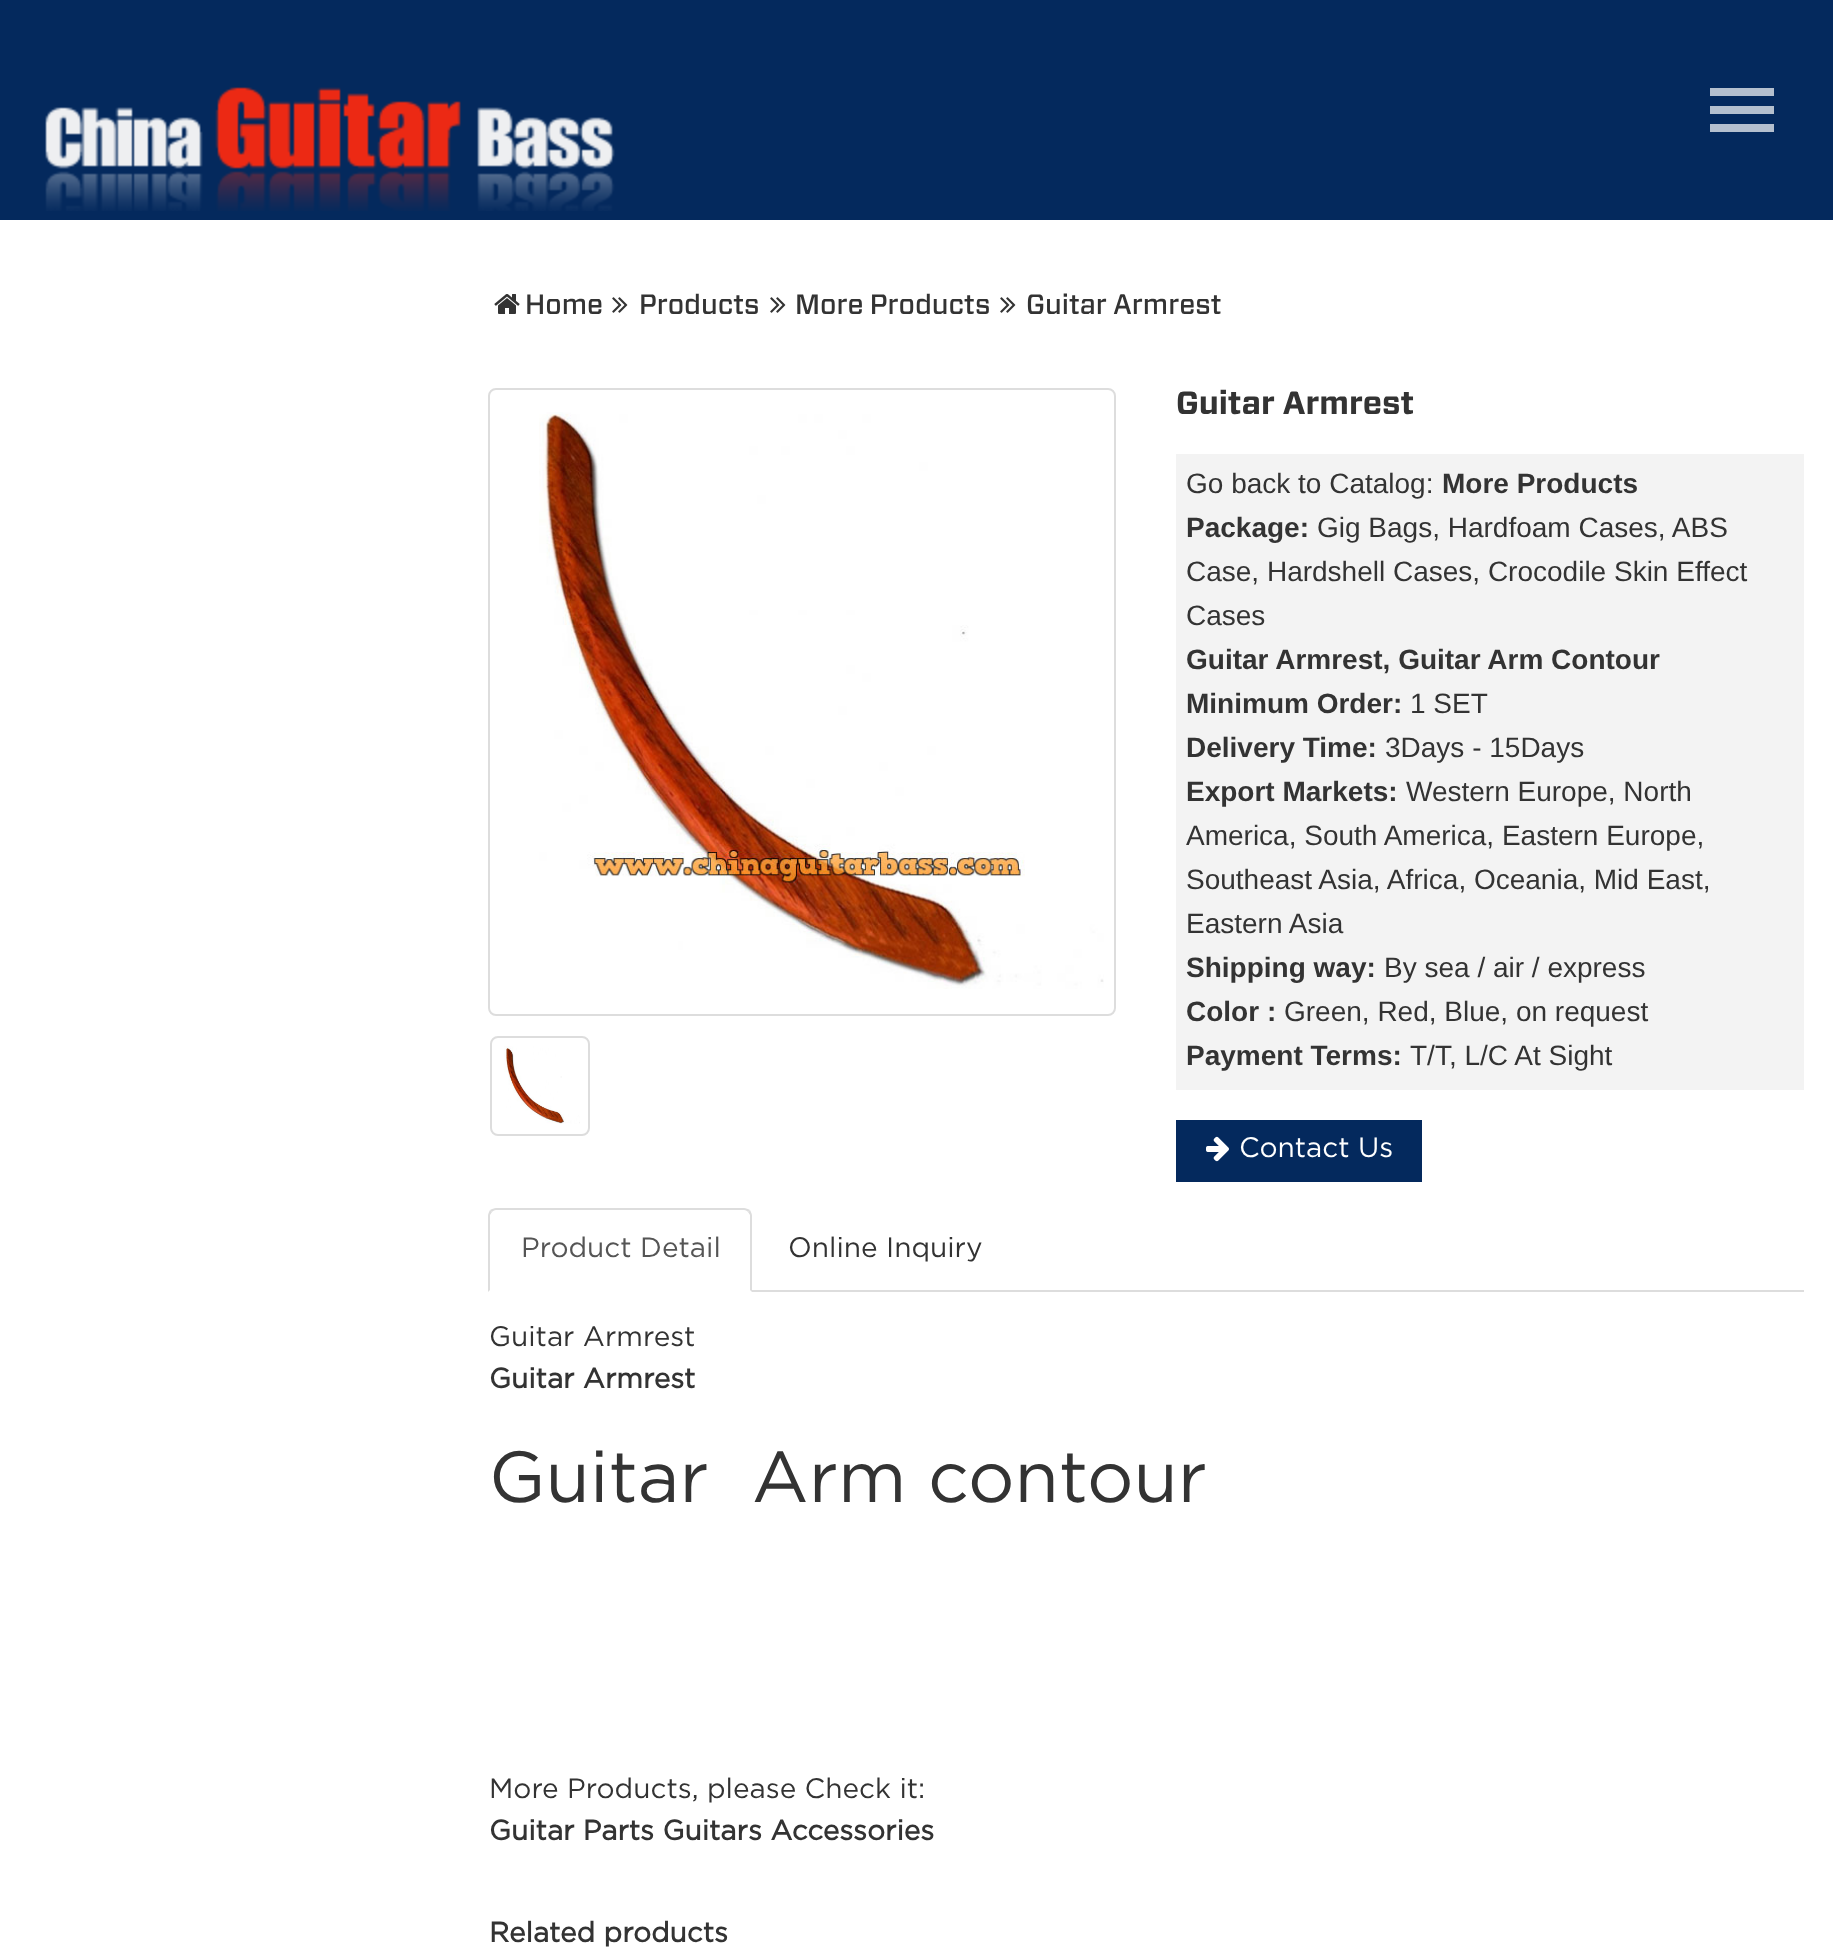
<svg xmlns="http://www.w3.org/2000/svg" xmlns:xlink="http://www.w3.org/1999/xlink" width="1833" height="1948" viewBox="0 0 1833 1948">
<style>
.cls-1{font:500 28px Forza;fill:#333333}
.cls-2{font:bold 32px Forza;fill:#333333}
.cls-3{font:28px Liberation Sans;fill:#333333}
.cls-4{font:bold 28px Liberation Sans;fill:#333333}
.cls-5{font:28px Gotham;fill:#ffffff}
.cls-6{font:28px Gotham;fill:#555555}
.cls-7{font:28px Gotham;fill:#333333}
.cls-8{font:bold 28px Gotham;fill:#333333}
.cls-9{font:72px Gotham;fill:#333333}
</style>
<rect width="100%" height="100%" fill="#ffffff"/>
<rect fill="#04295d" x="0" y="0" width="1833" height="220"/>
<image xlink:href="image0.png" x="45" y="87" width="570" height="124"/>
<rect fill="#b4bfce" x="1710" y="88" width="64" height="8"/>
<rect fill="#b4bfce" x="1710" y="106" width="64" height="8"/>
<rect fill="#b4bfce" x="1710" y="124" width="64" height="8"/>
<image xlink:href="image1.png" x="494" y="294" width="26" height="20"/>
<image xlink:href="image2.png" x="612" y="297" width="16" height="16"/>
<image xlink:href="image2.png" x="770" y="297" width="16" height="16"/>
<image xlink:href="image2.png" x="1000" y="297" width="16" height="16"/>
<rect fill="none" stroke="#dddddd" stroke-width="2" x="489" y="389" width="626" height="626" rx="7"/>
<image xlink:href="image3.png" x="539" y="412" width="565" height="577"/>
<rect fill="none" stroke="#dddddd" stroke-width="2" x="491" y="1037" width="98" height="98" rx="7"/>
<image xlink:href="image4.png" x="504" y="1046" width="76" height="78"/>
<rect fill="#f3f3f3" x="1176" y="454" width="628" height="636"/>
<rect fill="#04295d" x="1176" y="1120" width="246" height="62"/>
<image xlink:href="image5.png" x="1206" y="1136" width="23" height="26"/>
<rect fill="#dddddd" x="752" y="1290" width="1052" height="2"/>
<path fill="#dddddd" d="M496 1208C494 1208 492 1209 490 1210L492 1212C493 1211 494 1210 496 1210H744C746 1210 747 1211 748 1212L750 1210C748 1209 746 1208 744 1208Z"/>
<path fill="#dddddd" d="M752 1292V1216C752 1214 751 1212 750 1210L748 1212L750 1215V1290Z"/>
<path fill="#dddddd" d="M488 1292L490 1290V1215L492 1212L490 1210C489 1212 488 1214 488 1216Z"/>
<text class="cls-1" x="525" y="314">Home</text>
<text class="cls-1" x="639" y="314">Products</text>
<text class="cls-1" x="795" y="314">More Products</text>
<text class="cls-1" x="1026" y="314">Guitar Armrest</text>
<text class="cls-2" x="1176" y="414">Guitar Armrest</text>
<text class="cls-3" x="1186" y="493">Go back to Catalog:</text>
<text class="cls-4" x="1442" y="493">More Products</text>
<text class="cls-4" x="1186" y="537">Package:</text>
<text class="cls-3" x="1317" y="537">Gig Bags, Hardfoam Cases, ABS</text>
<text class="cls-3"><tspan x="1186" y="581">Case, Hardshell Cases, Crocodile Skin Effect</tspan><tspan x="1186" y="625">Cases</tspan></text>
<text class="cls-4"><tspan x="1186" y="669">Guitar Armrest, Guitar Arm Contour</tspan><tspan x="1186" y="713">Minimum Order:</tspan></text>
<text class="cls-3" x="1410" y="713">1 SET</text>
<text class="cls-4" x="1186" y="757">Delivery Time:</text>
<text class="cls-3" x="1385" y="757">3Days - 15Days</text>
<text class="cls-4" x="1186" y="801">Export Markets:</text>
<text class="cls-3" x="1406" y="801">Western Europe, North</text>
<text class="cls-3"><tspan x="1186" y="845">America, South America, Eastern Europe,</tspan><tspan x="1186" y="889">Southeast Asia, Africa, Oceania, Mid East,</tspan><tspan x="1186" y="933">Eastern Asia</tspan></text>
<text class="cls-4" x="1186" y="977">Shipping way:</text>
<text class="cls-3" x="1384" y="977">By sea / air / express</text>
<text class="cls-4" x="1186" y="1021">Color :</text>
<text class="cls-3" x="1284" y="1021">Green, Red, Blue, on request</text>
<text class="cls-4" x="1186" y="1065">Payment Terms:</text>
<text class="cls-3" x="1410" y="1065">T/T, L/C At Sight</text>
<text class="cls-5" x="1239" y="1157">Contact Us</text>
<text class="cls-6" x="521" y="1257">Product Detail</text>
<text class="cls-7" x="788" y="1257">Online Inquiry</text>
<text class="cls-7" x="489" y="1346">Guitar Armrest</text>
<text class="cls-8" x="489" y="1388">Guitar Armrest</text>
<text class="cls-9" xml:space="preserve" x="489" y="1502">Guitar  Arm contour</text>
<text class="cls-7" x="489" y="1798">More Products, please Check it:</text>
<text class="cls-8" x="489" y="1840">Guitar Parts Guitars Accessories</text>
<text class="cls-8" x="489" y="1942">Related products</text>
</svg>
